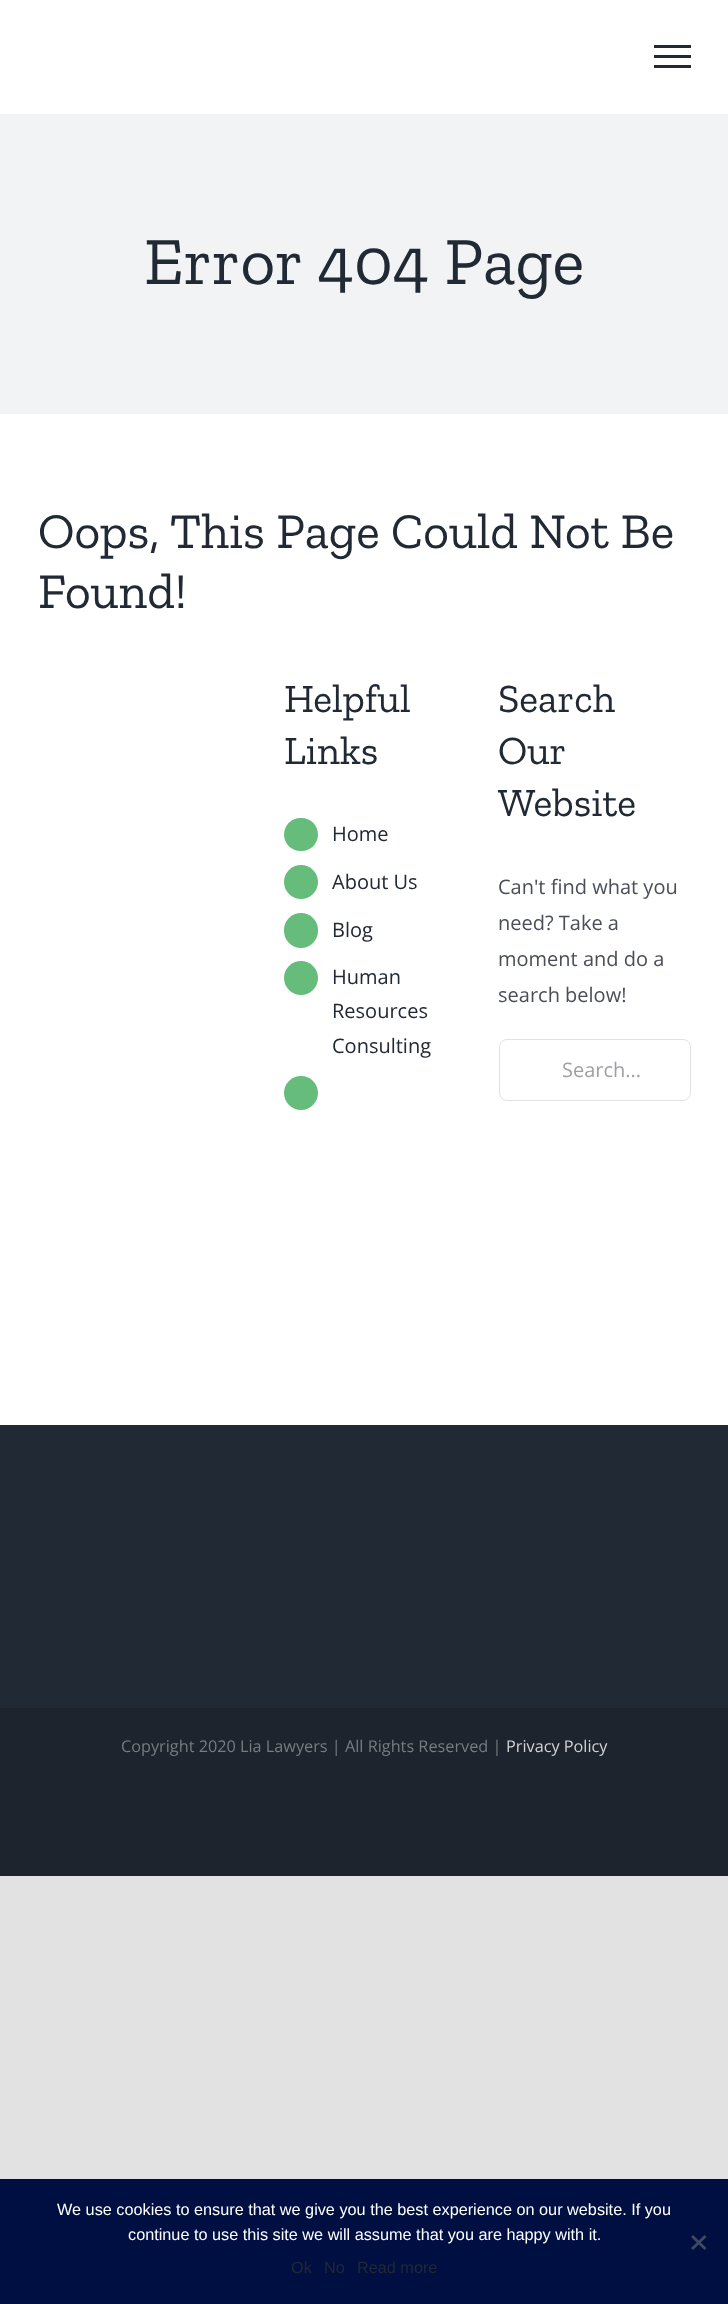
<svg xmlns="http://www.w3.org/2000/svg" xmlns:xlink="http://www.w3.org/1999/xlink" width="728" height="2304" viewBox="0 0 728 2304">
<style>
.cls-1{font:67.5px Zilla Slab;fill:#212934}
.cls-2{font:50px Zilla Slab;fill:#212934}
.cls-3{font:40px Zilla Slab;fill:#212934}
.cls-4{font:20px Open Sans;fill:#212934}
.cls-5{font:20px Open Sans;fill:#4a4e57}
.cls-6{font:20px Open Sans;fill:#9ea0a4}
.cls-7{font:16.25px Open Sans;fill:#777c81}
.cls-8{font:16.25px Open Sans;fill:#d2d3d5}
.cls-9{font:16.25px Liberation Sans;fill:#ffffff}
.cls-10{font:16.25px Liberation Sans;fill:#212934}
</style>
<rect width="100%" height="100%" fill="#e2e2e2"/>
<rect fill="#ffffff" x="0" y="0" width="728" height="1425"/>
<rect fill="#212934" x="654" y="45" width="37" height="3"/>
<rect fill="#212934" x="654" y="55" width="37" height="3"/>
<rect fill="#212934" x="654" y="65" width="37" height="3"/>
<rect fill="#f2f3f5" x="0" y="114" width="728" height="300"/>
<rect fill="#65bc7b" x="284" y="818" width="34" height="33" rx="16.5"/>
<circle fill="#65bc7b" cx="301" cy="882" r="17"/>
<rect fill="#65bc7b" x="284" y="913" width="34" height="35" rx="17"/>
<circle fill="#65bc7b" cx="301" cy="978" r="17"/>
<circle fill="#65bc7b" cx="301" cy="1093" r="17"/>
<rect fill="none" stroke="#e2e2e2" x="499.5" y="1039.5" width="191" height="61" rx="7.5"/>
<rect fill="#212934" x="0" y="1425" width="728" height="283"/>
<rect fill="#1d242d" x="0" y="1708" width="728" height="168"/>
<rect fill="#000f42" x="0" y="2179" width="728" height="125"/>
<path fill="#404861" d="M704.5 2235L706.5 2237L693 2250L691 2248Z"/>
<path fill="#404861" d="M691 2237L693 2235L706.5 2248L704.5 2250Z"/>
<text class="cls-1" x="144" y="284">Error 404 Page</text>
<text class="cls-2"><tspan x="38" y="548">Oops, This Page Could Not Be</tspan><tspan x="38" y="608">Found!</tspan></text>
<text class="cls-3"><tspan x="284" y="712">Helpful</tspan><tspan x="284" y="764">Links</tspan></text>
<text class="cls-4" x="332" y="841">Home</text>
<text class="cls-4" x="332" y="889">About Us</text>
<text class="cls-4" x="332" y="937">Blog</text>
<text class="cls-4"><tspan x="332" y="984">Human</tspan><tspan x="332" y="1018">Resources</tspan><tspan x="332" y="1053">Consulting</tspan></text>
<text class="cls-3"><tspan x="498" y="712">Search</tspan><tspan x="498" y="764">Our</tspan><tspan x="498" y="816">Website</tspan></text>
<text class="cls-5"><tspan x="498" y="894">Can't find what you</tspan><tspan x="498" y="930">need? Take a</tspan><tspan x="498" y="966">moment and do a</tspan><tspan x="498" y="1002">search below!</tspan></text>
<text class="cls-6" x="562" y="1077">Search...</text>
<text class="cls-7" x="121" y="1752">Copyright 2020 Lia Lawyers | All Rights Reserved |</text>
<text class="cls-8" x="506" y="1752">Privacy Policy</text>
<text class="cls-9" x="57" y="2215">We use cookies to ensure that we give you the best experience on our website. If you</text>
<text class="cls-9" x="128" y="2240">continue to use this site we will assume that you are happy with it.</text>
<text class="cls-10" x="291" y="2273">Ok</text>
<text class="cls-10" x="324" y="2273">No</text>
<text class="cls-10" x="357" y="2273">Read more</text>
</svg>
